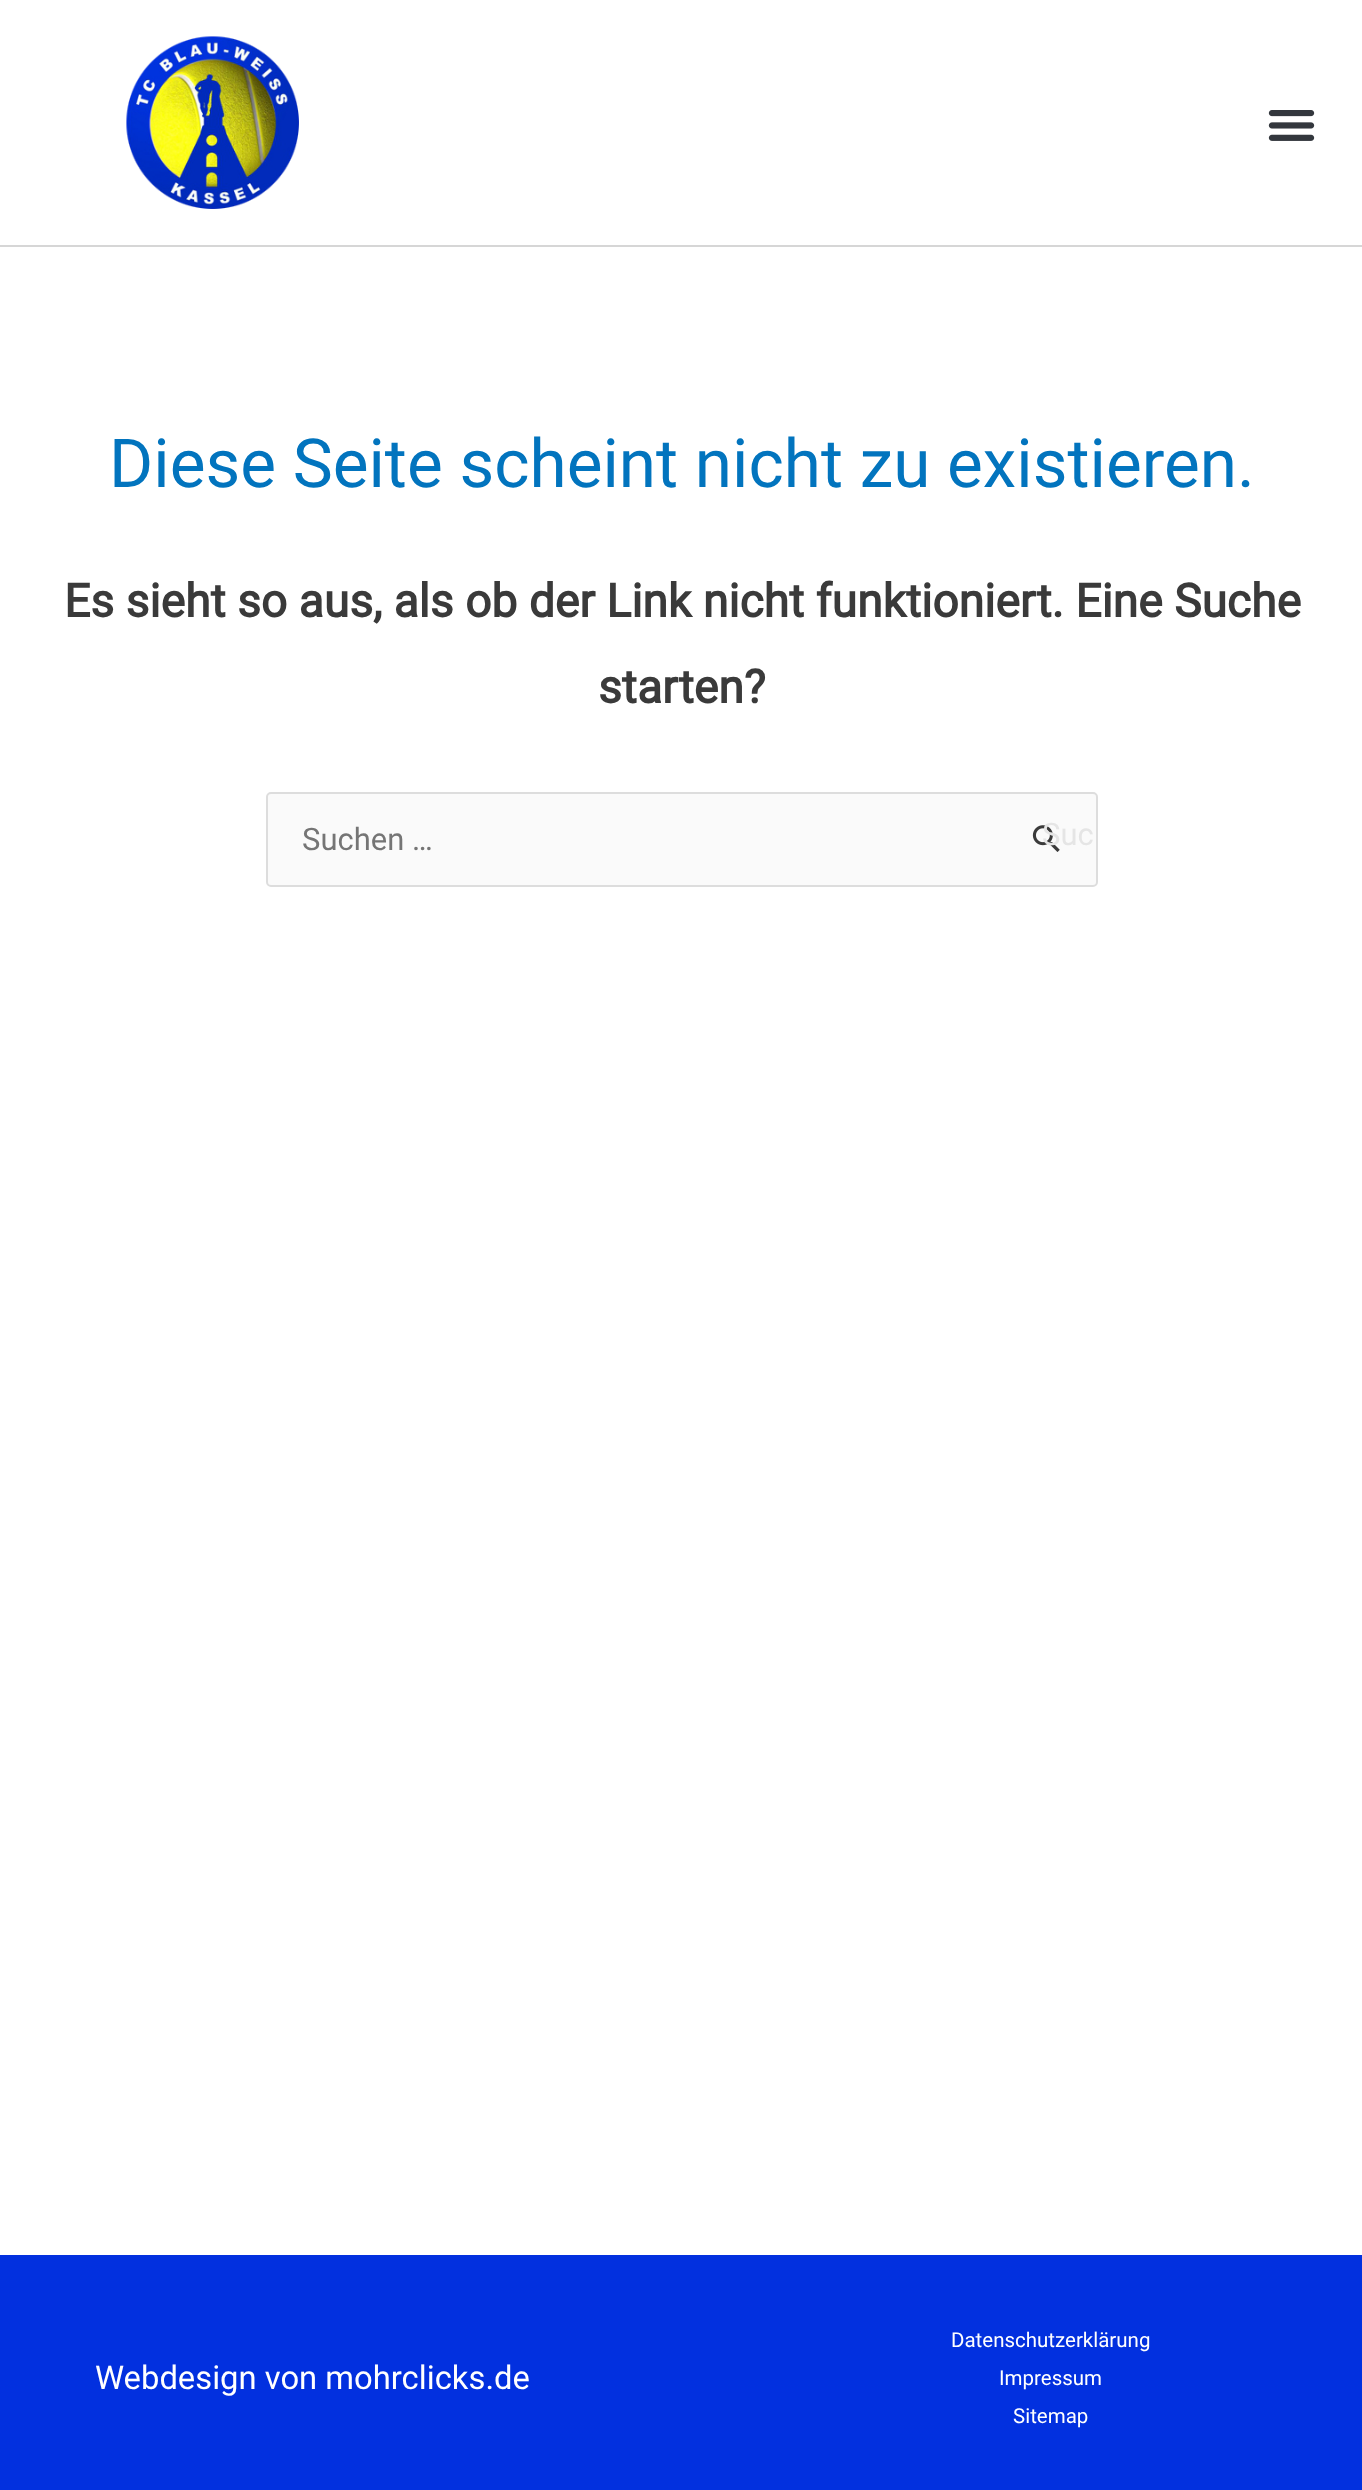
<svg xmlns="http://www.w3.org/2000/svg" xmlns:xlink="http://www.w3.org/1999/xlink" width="1362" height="2490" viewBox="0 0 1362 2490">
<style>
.cls-1{font:67.5px Roboto;fill:#0274be}
.cls-2{font:bold 46.2px Roboto;fill:#3a3a3a}
.cls-3{font:31px Roboto;fill:#e5e5e5}
.cls-4{font:31px Roboto;fill:#757575}
.cls-5{font:32.8px Roboto;fill:#ffffff}
.cls-6{font:20.5px Roboto;fill:#ffffff}
</style>
<rect width="100%" height="100%" fill="#ffffff"/>
<rect fill="#d6d6d6" x="0" y="245" width="1362" height="2"/>
<image xlink:href="image0.png" x="126" y="36" width="173" height="173"/>
<image xlink:href="image1.png" x="1268" y="110" width="47" height="31"/>
<rect fill="#fafafa" stroke="#dddddd" stroke-width="2" x="267" y="793" width="830" height="93" rx="4"/>
<image xlink:href="image2.png" x="1032" y="825" width="28" height="27"/>
<rect fill="#0230df" x="0" y="2255" width="1362" height="235"/>
<text class="cls-1" x="109" y="487">Diese Seite scheint nicht zu existieren.</text>
<text class="cls-2" x="64" y="617">Es sieht so aus, als ob der Link nicht funktioniert. Eine Suche</text>
<text class="cls-2" x="598" y="703">starten?</text>
<text class="cls-3" x="1042" y="845">Suc</text>
<text class="cls-4" x="302" y="850">Suchen …</text>
<text class="cls-5" x="95" y="2389">Webdesign von mohrclicks.de</text>
<text class="cls-6" x="951" y="2347">Datenschutzerklärung</text>
<text class="cls-6" x="999" y="2385">Impressum</text>
<text class="cls-6" x="1013" y="2423">Sitemap</text>
</svg>
